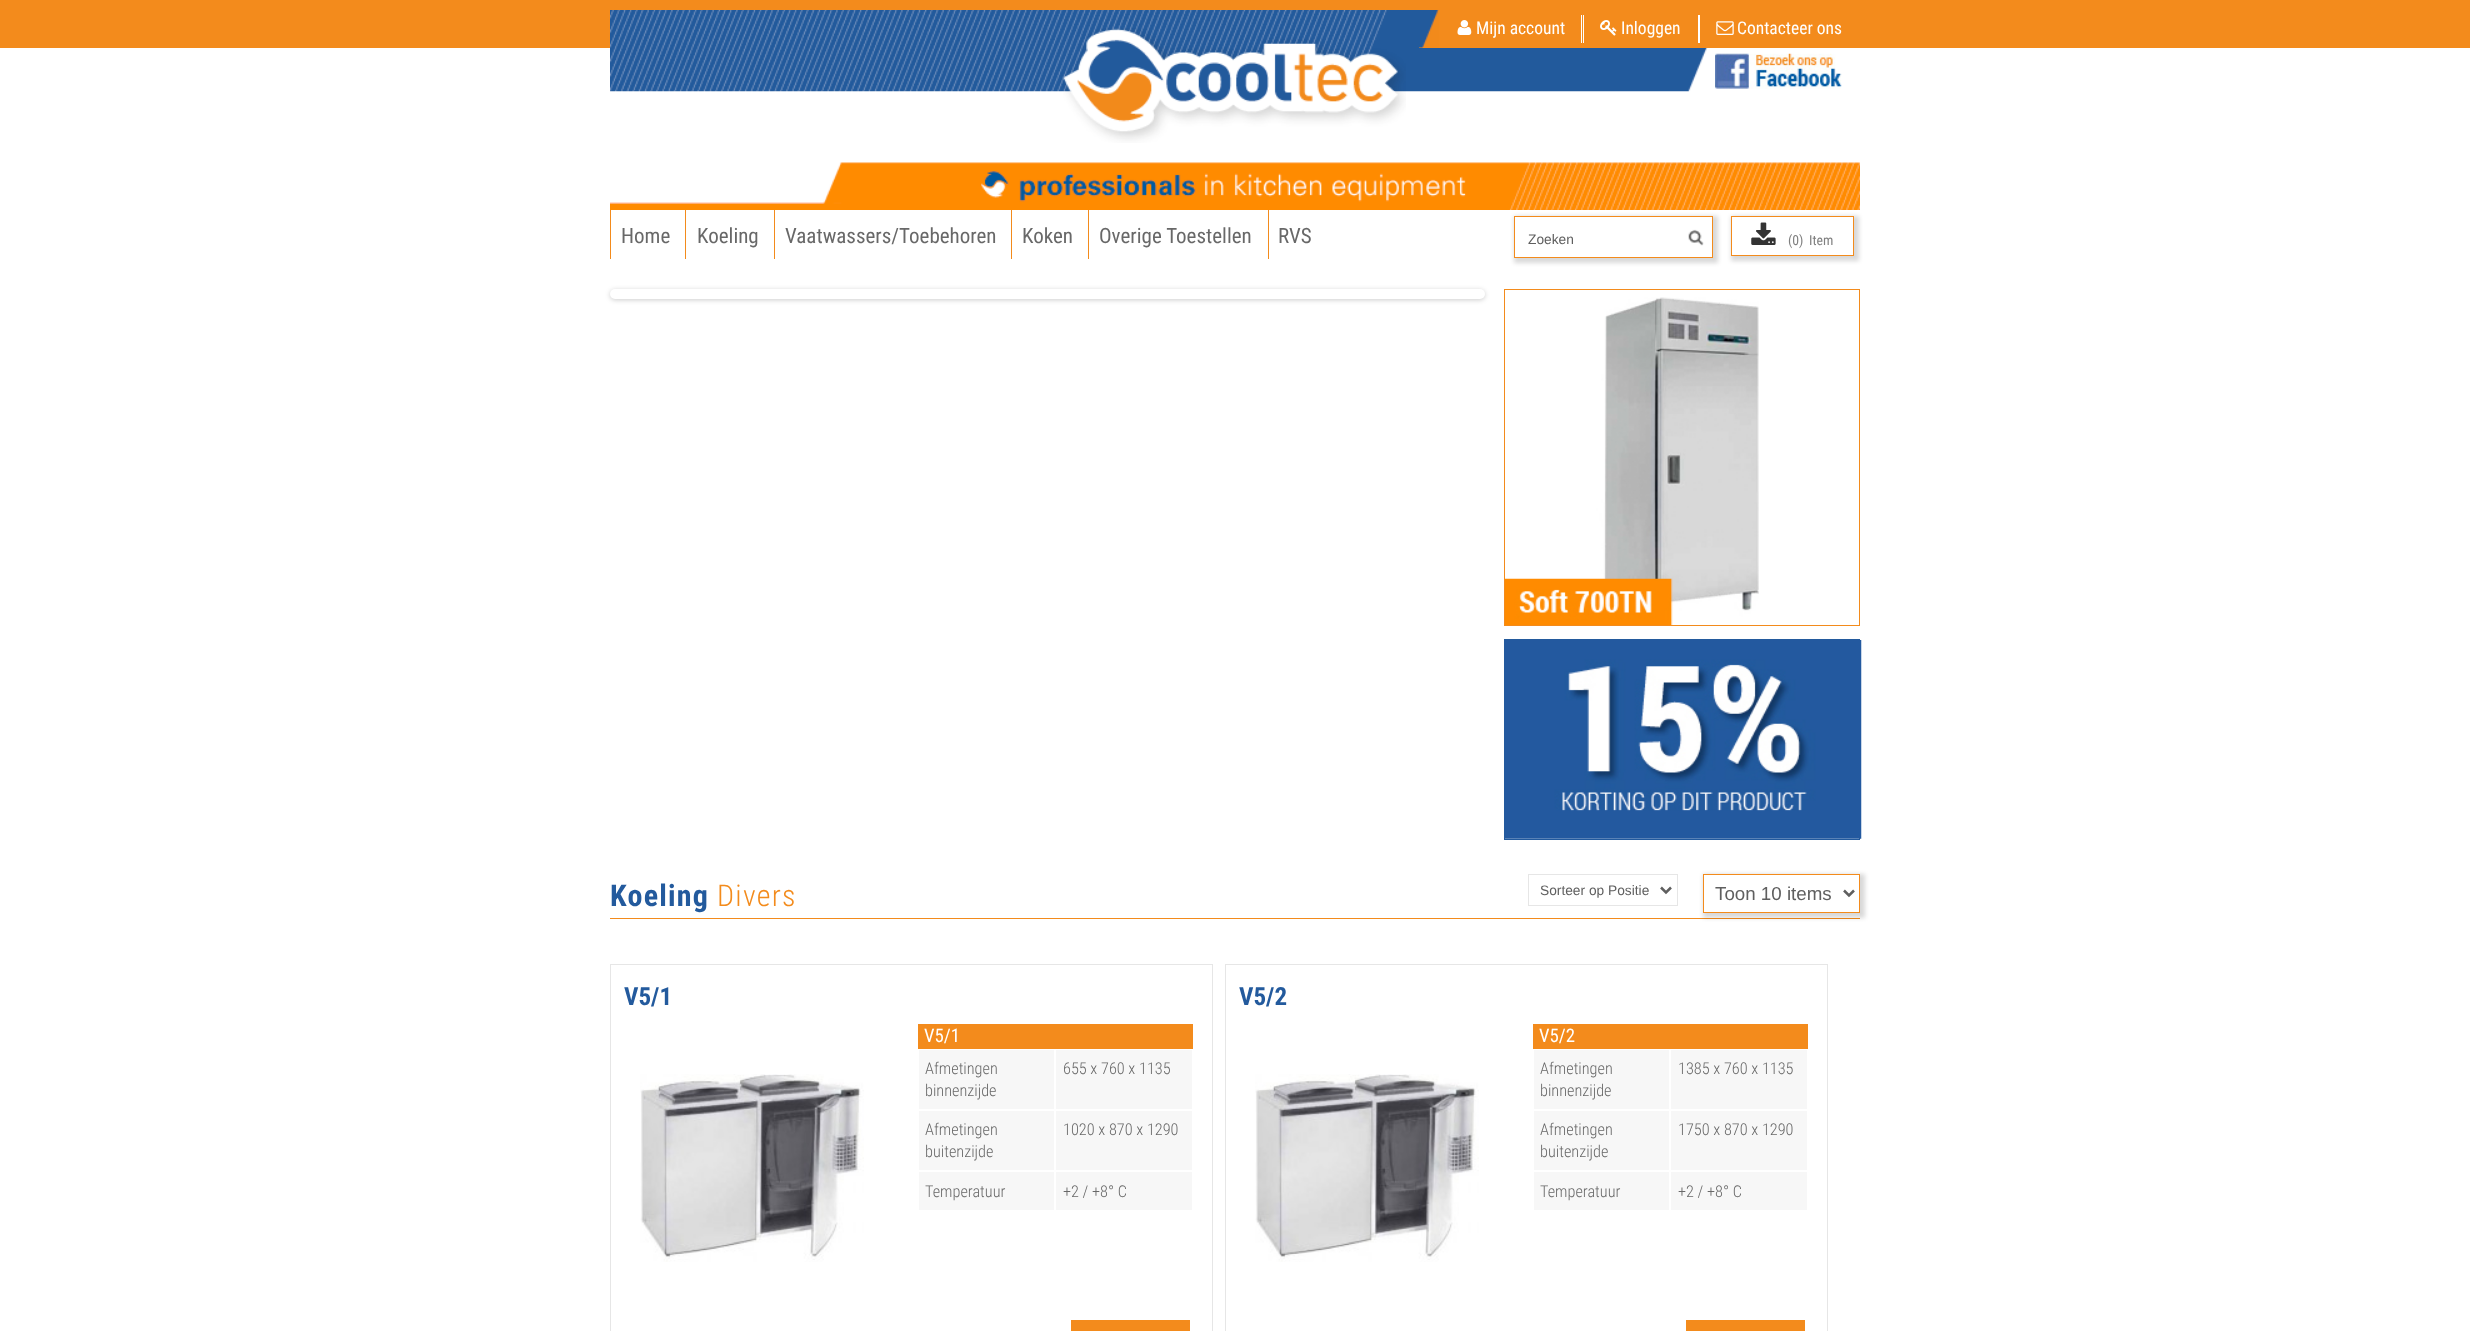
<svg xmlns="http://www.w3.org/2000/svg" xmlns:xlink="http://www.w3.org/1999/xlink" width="2470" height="1331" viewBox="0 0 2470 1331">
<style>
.cls-1{font:17.5px Roboto Condensed;fill:#ffffff}
.cls-2{font:21px Roboto Condensed;fill:#686868}
.cls-3{font:13.75px Liberation Sans;fill:#5f5f5f}
.cls-4{font:13.75px Roboto Condensed;fill:#7f7f7f}
.cls-5{font:bold 30px Roboto Condensed;letter-spacing:1.25px;fill:#235a9d}
.cls-6{font:300 30px Roboto Condensed;letter-spacing:1.25px;fill:#f38b1c}
.cls-7{font:18.75px Liberation Sans;fill:#5f5f5f}
.cls-8{font:bold 25px Roboto Condensed;fill:#235a9d}
.cls-9{font:18.75px Roboto Condensed;fill:#ffffff}
.cls-10{font:300 16.25px Roboto Condensed;fill:#686868}
</style>
<rect width="100%" height="100%" fill="#ffffff"/>
<rect fill="#f38b1c" x="0" y="0" width="2470" height="48"/>
<image xlink:href="image0.png" x="610" y="10" width="1113" height="82"/>
<image xlink:href="image1.png" x="1063" y="28" width="343" height="115"/>
<image xlink:href="image2.png" x="1715" y="53" width="127" height="36"/>
<rect fill="#f38b1c" x="1419" y="10" width="304" height="38"/>
<image xlink:href="image3.png" x="1419" y="10" width="20" height="38"/>
<rect fill="#ffffff" x="1581" y="15" width="1" height="28"/>
<image xlink:href="image4.png" x="1457" y="20" width="15" height="15"/>
<rect fill="#ffffff" x="1698" y="15" width="2" height="28"/>
<rect fill="#ffffff" x="1583" y="15" width="1" height="28"/>
<image xlink:href="image5.png" x="1600" y="20" width="17" height="16"/>
<image xlink:href="image6.png" x="1716" y="21" width="18" height="14"/>
<image xlink:href="image7.png" x="610" y="162" width="1250" height="48"/>
<rect fill="#f38b1c" x="610" y="210" width="1" height="49"/>
<rect fill="#f38b1c" x="685" y="210" width="1" height="49"/>
<rect fill="#f38b1c" x="774" y="210" width="1" height="49"/>
<rect fill="#f38b1c" x="1011" y="210" width="1" height="49"/>
<rect fill="#f38b1c" x="1088" y="210" width="1" height="49"/>
<rect fill="#f38b1c" x="1268" y="210" width="1" height="49"/>
<rect fill="#000000" fill-opacity="0.15" filter="blur(2px)" x="1514" y="216" width="204" height="47"/>
<rect fill="#ffffff" stroke="#f38b1c" x="1514.5" y="216.5" width="198" height="41"/>
<image xlink:href="image8.png" x="1688" y="229" width="16" height="17"/>
<rect fill="#000000" fill-opacity="0.15" filter="blur(2px)" x="1731" y="216" width="128" height="45"/>
<rect fill="#ffffff" stroke="#f38b1c" x="1731.5" y="216.5" width="122" height="39"/>
<image xlink:href="image9.png" x="1751" y="222" width="25" height="23"/>
<rect fill="#000000" fill-opacity="0.2" filter="blur(2.5px)" x="610" y="290" width="875" height="10" rx="5"/>
<rect fill="#ffffff" x="610" y="289" width="875" height="10" rx="5"/>
<rect fill="none" stroke="#f38b1c" x="1504.5" y="289.5" width="355" height="336"/>
<image xlink:href="image10.png" x="1505" y="297" width="254" height="328"/>
<rect fill="none" stroke="#235a9d" x="1504.5" y="639.5" width="355" height="200"/>
<image xlink:href="image11.png" x="1505" y="640" width="357" height="199"/>
<rect fill="#f38b1c" x="610" y="918" width="1250" height="1"/>
<rect fill="none" stroke="#e6e6e6" x="1528.5" y="874.5" width="149" height="31"/>
<path fill="none" stroke="#5f5f5f" stroke-width="2.5" d="M1661 887.5L1666 892.5L1671 887.5"/>
<rect fill="#000000" fill-opacity="0.15" filter="blur(2px)" x="1703" y="874" width="162" height="44"/>
<rect fill="#ffffff" stroke="#f38b1c" x="1703.5" y="874.5" width="156" height="38"/>
<path fill="none" stroke="#5f5f5f" stroke-width="2.5" d="M1844 890.5L1849 895.5L1854 890.5"/>
<rect fill="none" stroke="#e6e6e6" x="610.5" y="964.5" width="602" height="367"/>
<image xlink:href="image12.png" x="640" y="1074" width="224" height="188"/>
<rect fill="#f38b1c" x="918" y="1024" width="275" height="25"/>
<rect fill="#f7f7f7" x="919" y="1050" width="135" height="59"/>
<rect fill="#f7f7f7" x="1056" y="1050" width="136" height="59"/>
<rect fill="#f7f7f7" x="919" y="1111" width="135" height="59"/>
<rect fill="#f7f7f7" x="1056" y="1111" width="136" height="59"/>
<rect fill="#f7f7f7" x="919" y="1172" width="135" height="38"/>
<rect fill="#f7f7f7" x="1056" y="1172" width="136" height="38"/>
<rect fill="#f38b1c" x="1071" y="1320" width="119" height="11"/>
<rect fill="none" stroke="#e6e6e6" x="1225.5" y="964.5" width="602" height="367"/>
<image xlink:href="image13.png" x="1255" y="1074" width="224" height="188"/>
<rect fill="#f38b1c" x="1533" y="1024" width="275" height="25"/>
<rect fill="#f7f7f7" x="1534" y="1050" width="135" height="59"/>
<rect fill="#f7f7f7" x="1671" y="1050" width="136" height="59"/>
<rect fill="#f7f7f7" x="1534" y="1111" width="135" height="59"/>
<rect fill="#f7f7f7" x="1671" y="1111" width="136" height="59"/>
<rect fill="#f7f7f7" x="1534" y="1172" width="135" height="38"/>
<rect fill="#f7f7f7" x="1671" y="1172" width="136" height="38"/>
<rect fill="#f38b1c" x="1686" y="1320" width="119" height="11"/>
<text class="cls-1" x="1476" y="34">Mijn account</text>
<text class="cls-1" x="1621" y="34">Inloggen</text>
<text class="cls-1" x="1737" y="34">Contacteer ons</text>
<text class="cls-2" x="621" y="243">Home</text>
<text class="cls-2" x="697" y="243">Koeling</text>
<text class="cls-2" x="785" y="243">Vaatwassers/Toebehoren</text>
<text class="cls-2" x="1022" y="243">Koken</text>
<text class="cls-2" x="1099" y="243">Overige Toestellen</text>
<text class="cls-2" x="1278" y="243">RVS</text>
<text class="cls-3" x="1528" y="244">Zoeken</text>
<text class="cls-4" x="1788" y="245">(0)</text>
<text class="cls-4" x="1809" y="245">Item</text>
<text class="cls-5" x="610" y="906">Koeling</text>
<text class="cls-6" x="717" y="906">Divers</text>
<text class="cls-3" x="1540" y="895">Sorteer op Positie</text>
<text class="cls-7" x="1715" y="900">Toon 10 items</text>
<text class="cls-8" x="624" y="1005">V5/1</text>
<text class="cls-9" x="924" y="1042">V5/1</text>
<text class="cls-10"><tspan x="925" y="1074">Afmetingen</tspan><tspan x="925" y="1096">binnenzijde</tspan></text>
<text class="cls-10" x="1063" y="1074">655 x 760 x 1135</text>
<text class="cls-10"><tspan x="925" y="1135">Afmetingen</tspan><tspan x="925" y="1157">buitenzijde</tspan></text>
<text class="cls-10" x="1063" y="1135">1020 x 870 x 1290</text>
<text class="cls-10" x="925" y="1197">Temperatuur</text>
<text class="cls-10" x="1063" y="1197">+2 / +8° C</text>
<text class="cls-8" x="1239" y="1005">V5/2</text>
<text class="cls-9" x="1539" y="1042">V5/2</text>
<text class="cls-10"><tspan x="1540" y="1074">Afmetingen</tspan><tspan x="1540" y="1096">binnenzijde</tspan></text>
<text class="cls-10" x="1678" y="1074">1385 x 760 x 1135</text>
<text class="cls-10"><tspan x="1540" y="1135">Afmetingen</tspan><tspan x="1540" y="1157">buitenzijde</tspan></text>
<text class="cls-10" x="1678" y="1135">1750 x 870 x 1290</text>
<text class="cls-10" x="1540" y="1197">Temperatuur</text>
<text class="cls-10" x="1678" y="1197">+2 / +8° C</text>
</svg>
